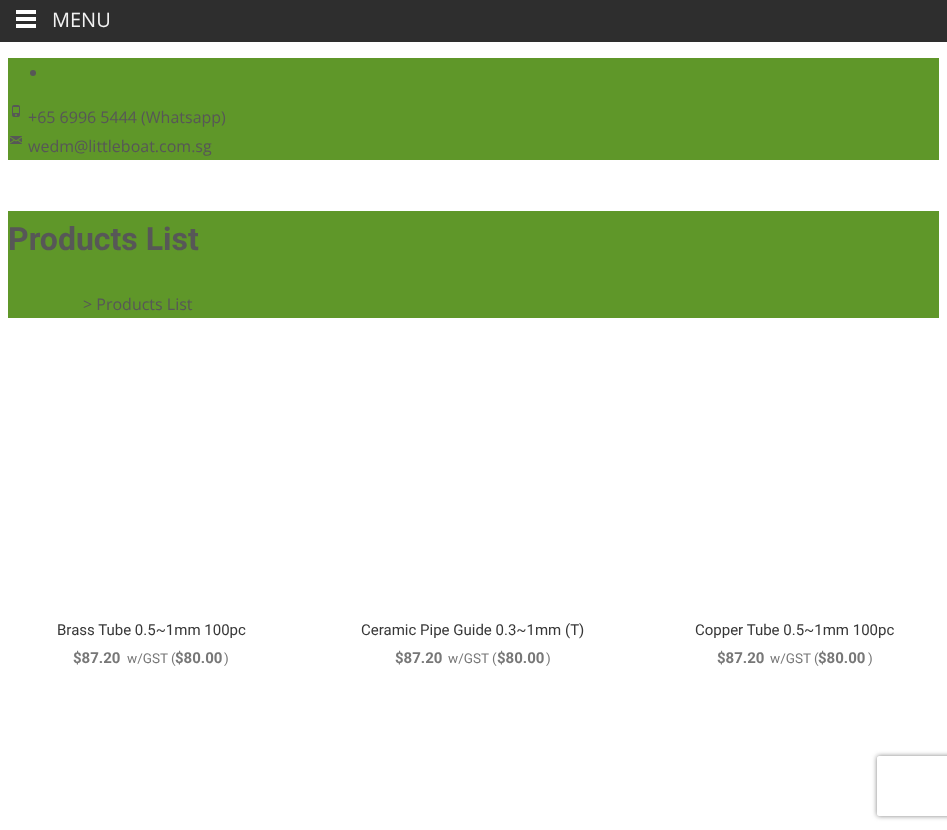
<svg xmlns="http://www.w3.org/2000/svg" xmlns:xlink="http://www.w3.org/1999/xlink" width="947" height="830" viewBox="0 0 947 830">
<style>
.cls-1{font:20px Open Sans;fill:#f2f2f2}
.cls-2{font:16px Open Sans;fill:#575757}
.cls-3{font:bold 32px Roboto;fill:#575757}
.cls-4{font:15px Roboto;fill:#373737}
.cls-5{font:bold 15px Roboto;fill:#777777}
.cls-6{font:13.5px Roboto;fill:#777777}
</style>
<defs>
<clipPath id="clip1"><path d="M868 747H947V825H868ZM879 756H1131C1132 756 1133 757 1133 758V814C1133 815 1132 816 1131 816H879C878 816 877 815 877 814V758C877 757 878 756 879 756Z" clip-rule="evenodd"/></clipPath>
</defs>
<rect width="100%" height="100%" fill="#ffffff"/>
<rect fill="#2e2e2e" x="0" y="0" width="947" height="42"/>
<rect fill="#ffffff" x="16" y="10" width="20" height="4"/>
<rect fill="#ffffff" x="16" y="17" width="20" height="4"/>
<rect fill="#ffffff" x="16" y="24" width="20" height="4"/>
<rect fill="#5f9729" x="8" y="58" width="931" height="102"/>
<circle fill="#575757" cx="33" cy="73" r="3"/>
<image xlink:href="image0.png" x="12" y="105" width="8" height="12"/>
<image xlink:href="image1.png" x="10" y="136" width="12" height="8"/>
<rect fill="#5f9729" x="8" y="211" width="931" height="107"/>
<g clip-path="url(#clip1)">
<rect fill="#808080" filter="blur(2.5px)" x="877" y="756" width="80" height="60" rx="2"/>
</g>
<text class="cls-1" x="52" y="27">MENU</text>
<text class="cls-2"><tspan x="28" y="123">+65 6996 5444 (Whatsapp)</tspan><tspan x="28" y="152">wedm@littleboat.com.sg</tspan></text>
<text class="cls-3" x="8" y="250">Products List</text>
<text class="cls-2" x="83" y="310">&gt; Products List</text>
<text class="cls-4" x="57" y="635">Brass Tube 0.5~1mm 100pc</text>
<text class="cls-5" x="73" y="663">$87.20</text>
<text class="cls-6" x="127" y="663">w/GST (</text>
<text class="cls-5" x="175" y="663">$80.00</text>
<text class="cls-6" x="224" y="663">)</text>
<text class="cls-4" x="361" y="635">Ceramic Pipe Guide 0.3~1mm (T)</text>
<text class="cls-5" x="395" y="663">$87.20</text>
<text class="cls-6" x="448" y="663">w/GST (</text>
<text class="cls-5" x="497" y="663">$80.00</text>
<text class="cls-6" x="546" y="663">)</text>
<text class="cls-4" x="695" y="635">Copper Tube 0.5~1mm 100pc</text>
<text class="cls-5" x="717" y="663">$87.20</text>
<text class="cls-6" x="770" y="663">w/GST (</text>
<text class="cls-5" x="818" y="663">$80.00</text>
<text class="cls-6" x="868" y="663">)</text>
</svg>
